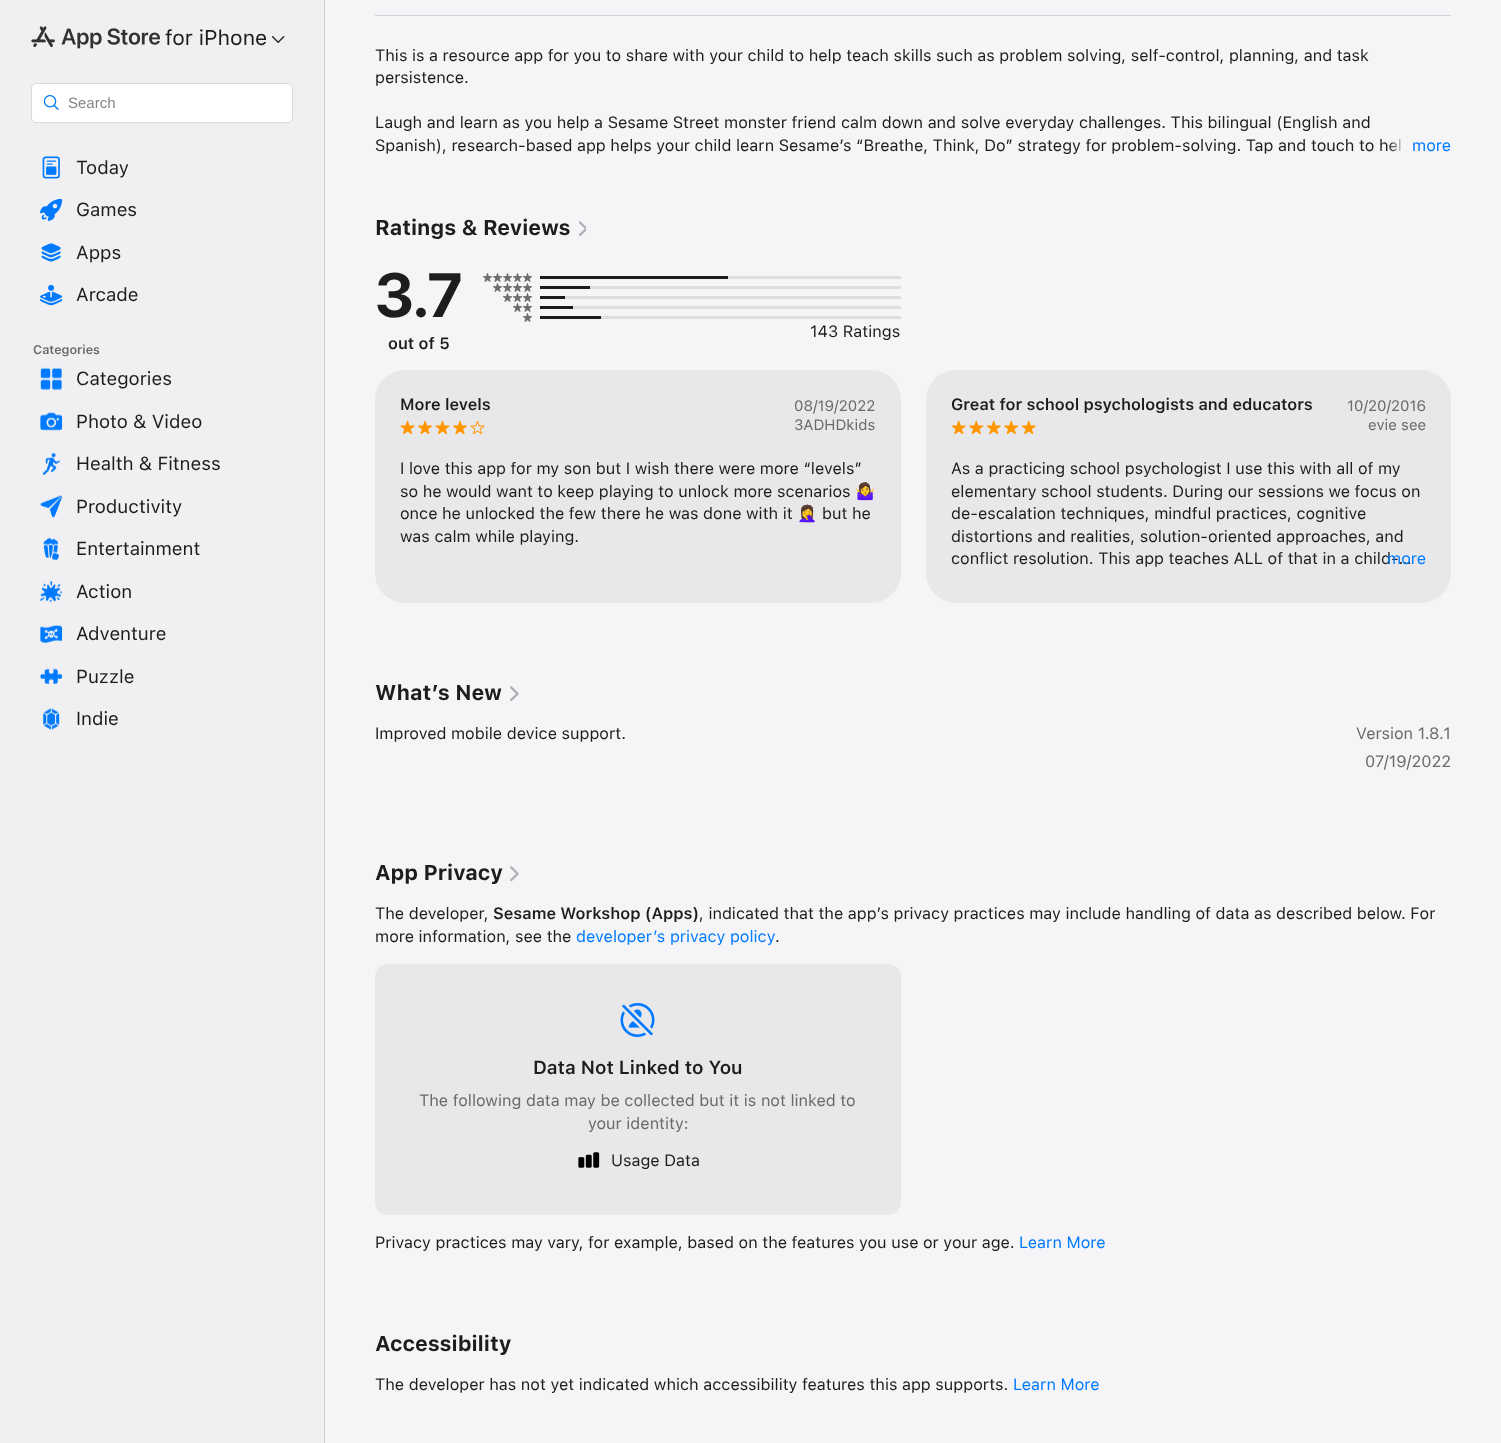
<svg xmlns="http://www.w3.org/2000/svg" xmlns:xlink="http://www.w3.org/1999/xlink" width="1501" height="1443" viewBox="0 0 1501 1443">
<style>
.cls-1{font:21.25px SF;fill:#1d1d1d}
.cls-2{font:15px Liberation Sans;fill:#858585}
.cls-3{font:18.75px SF;fill:#1d1d1d}
.cls-4{font:600 12.5px SF;fill:#6a6a6a}
.cls-5{font:16.25px SF;fill:#1d1d1d}
.cls-6{font:16.25px SF;fill:#007aff}
.cls-7{font:bold 21.25px SF;fill:#1d1d1d}
.cls-8{font:bold 62px 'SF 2';fill:#1d1d1d}
.cls-9{font:600 16.25px SF;fill:#1d1d1d}
.cls-10{font:15px SF;fill:#6a6a6a}
.cls-11{font:16.25px Noto Color Emoji;fill:#1d1d1d}
.cls-12{font:16.25px SF;fill:#6a6a6a}
.cls-13{font:600 18.75px SF;fill:#1d1d1d}
</style>
<defs>
<linearGradient id="g1" gradientUnits="userSpaceOnUse" x1="1451" y1="146" x2="1388" y2="146"><stop offset="0.72" stop-color="#f5f5f7"/><stop offset="1" stop-color="#f5f5f7" stop-opacity="0"/></linearGradient>
</defs>
<rect width="100%" height="100%" fill="#f5f5f7"/>
<rect fill="#f0f0f2" x="0" y="0" width="324" height="1443"/>
<rect fill="#ccccce" x="324" y="0" width="1" height="1443"/>
<image xlink:href="image0.png" x="31" y="26" width="129" height="23"/>
<image xlink:href="image1.png" x="271" y="36" width="14" height="7"/>
<rect fill="#ffffff" x="31" y="83" width="262" height="40" rx="5"/>
<rect fill="none" stroke="#000000" stroke-opacity="0.15" x="31.5" y="83.5" width="261" height="39" rx="4.5"/>
<image xlink:href="image2.png" x="44" y="95" width="15" height="15"/>
<image xlink:href="image3.png" x="42" y="156" width="18" height="23"/>
<image xlink:href="image4.png" x="40" y="198" width="23" height="23"/>
<image xlink:href="image5.png" x="41" y="243" width="20" height="19"/>
<image xlink:href="image6.png" x="40" y="284" width="23" height="22"/>
<image xlink:href="image7.png" x="40" y="367" width="22" height="23"/>
<image xlink:href="image8.png" x="40" y="412" width="23" height="19"/>
<image xlink:href="image9.png" x="42" y="452" width="18" height="23"/>
<image xlink:href="image10.png" x="40" y="495" width="22" height="23"/>
<image xlink:href="image11.png" x="43" y="537" width="16" height="23"/>
<image xlink:href="image12.png" x="40" y="580" width="22" height="23"/>
<image xlink:href="image13.png" x="40" y="624" width="23" height="19"/>
<image xlink:href="image14.png" x="40" y="668" width="23" height="16"/>
<image xlink:href="image15.png" x="43" y="707" width="17" height="23"/>
<rect fill="#d1d1d6" x="375" y="15" width="1076" height="1"/>
<image xlink:href="image16.png" x="579" y="221" width="7" height="15"/>
<image xlink:href="image17.png" x="483" y="273" width="10" height="9"/>
<image xlink:href="image17.png" x="493" y="273" width="10" height="9"/>
<image xlink:href="image17.png" x="503" y="273" width="10" height="9"/>
<image xlink:href="image17.png" x="513" y="273" width="10" height="9"/>
<image xlink:href="image17.png" x="523" y="273" width="10" height="9"/>
<rect fill="#ddddde" x="728" y="276" width="173" height="3"/>
<rect fill="#1b1b1b" x="540" y="276" width="188" height="3"/>
<image xlink:href="image17.png" x="493" y="283" width="10" height="9"/>
<image xlink:href="image17.png" x="503" y="283" width="10" height="9"/>
<image xlink:href="image17.png" x="513" y="283" width="10" height="9"/>
<image xlink:href="image17.png" x="523" y="283" width="10" height="9"/>
<rect fill="#ddddde" x="590" y="286" width="311" height="3"/>
<rect fill="#1b1b1b" x="540" y="286" width="50" height="3"/>
<image xlink:href="image17.png" x="503" y="293" width="10" height="9"/>
<image xlink:href="image17.png" x="513" y="293" width="10" height="9"/>
<image xlink:href="image17.png" x="523" y="293" width="10" height="9"/>
<rect fill="#ddddde" x="565" y="296" width="336" height="3"/>
<rect fill="#1b1b1b" x="540" y="296" width="25" height="3"/>
<image xlink:href="image17.png" x="513" y="303" width="10" height="9"/>
<image xlink:href="image17.png" x="523" y="303" width="10" height="9"/>
<rect fill="#ddddde" x="573" y="306" width="328" height="3"/>
<rect fill="#1b1b1b" x="540" y="306" width="33" height="3"/>
<image xlink:href="image17.png" x="523" y="313" width="10" height="9"/>
<rect fill="#ddddde" x="601" y="316" width="300" height="3"/>
<rect fill="#1b1b1b" x="540" y="316" width="61" height="3"/>
<rect fill="#e8e8eb" x="375" y="370" width="526" height="233" rx="30"/>
<image xlink:href="image18.png" x="400" y="420" width="15" height="15"/>
<image xlink:href="image19.png" x="418" y="420" width="14" height="15"/>
<image xlink:href="image18.png" x="435" y="420" width="15" height="15"/>
<image xlink:href="image19.png" x="453" y="420" width="14" height="15"/>
<image xlink:href="image20.png" x="470" y="420" width="15" height="15"/>
<rect fill="#e8e8eb" x="926" y="370" width="525" height="233" rx="30"/>
<image xlink:href="image21.png" x="951" y="420" width="15" height="15"/>
<image xlink:href="image22.png" x="969" y="420" width="15" height="15"/>
<image xlink:href="image21.png" x="986" y="420" width="15" height="15"/>
<image xlink:href="image22.png" x="1004" y="420" width="15" height="15"/>
<image xlink:href="image21.png" x="1021" y="420" width="15" height="15"/>
<image xlink:href="image23.png" x="510" y="686" width="9" height="15"/>
<image xlink:href="image23.png" x="510" y="866" width="9" height="15"/>
<rect fill="#e8e8eb" x="375" y="964" width="526" height="251" rx="13"/>
<image xlink:href="image24.png" x="620" y="1003" width="35" height="34"/>
<image xlink:href="image25.png" x="578" y="1152" width="22" height="16"/>
<text class="cls-1" x="165" y="45">for iPhone</text>
<text class="cls-2" x="68" y="108">Search</text>
<text class="cls-3" x="76" y="174">Today</text>
<text class="cls-3" x="76" y="216">Games</text>
<text class="cls-3" x="76" y="259">Apps</text>
<text class="cls-3" x="76" y="301">Arcade</text>
<text class="cls-4" x="33" y="354">Categories</text>
<text class="cls-3" x="76" y="385">Categories</text>
<text class="cls-3" x="76" y="428">Photo &amp; Video</text>
<text class="cls-3" x="76" y="470">Health &amp; Fitness</text>
<text class="cls-3" x="76" y="513">Productivity</text>
<text class="cls-3" x="76" y="555">Entertainment</text>
<text class="cls-3" x="76" y="598">Action</text>
<text class="cls-3" x="76" y="640">Adventure</text>
<text class="cls-3" x="76" y="683">Puzzle</text>
<text class="cls-3" x="76" y="725">Indie</text>
<text class="cls-5"><tspan x="375" y="61">This is a resource app for you to share with your child to help teach skills such as problem solving, self-control, planning, and task</tspan><tspan x="375" y="83">persistence.</tspan></text>
<text class="cls-5"><tspan x="375" y="128">Laugh and learn as you help a Sesame Street monster friend calm down and solve everyday challenges. This bilingual (English and</tspan><tspan x="375" y="151">Spanish), research-based app helps your child learn Sesame’s “Breathe, Think, Do” strategy for problem-solving. Tap and touch to hel</tspan></text>
<rect fill="url(#g1)" x="1389" y="139" width="12" height="13"/>
<text class="cls-6" x="1412" y="151">more</text>
<text class="cls-7" x="375" y="235">Ratings &amp; Reviews</text>
<text class="cls-8" x="375" y="317">3.7</text>
<text class="cls-9" x="388" y="349">out of 5</text>
<text class="cls-5" x="810" y="337">143 Ratings</text>
<text class="cls-9" x="400" y="410">More levels</text>
<text class="cls-10"><tspan x="794" y="411">08/19/2022</tspan><tspan x="794" y="430">3ADHDkids</tspan></text>
<text class="cls-5"><tspan x="400" y="474">I love this app for my son but I wish there were more “levels”</tspan><tspan x="400" y="497">so he would want to keep playing to unlock more scenarios</tspan></text>
<text class="cls-11" x="855" y="497">🤷‍♀️</text>
<text class="cls-5" x="400" y="519">once he unlocked the few there he was done with it</text>
<text class="cls-11" x="797" y="519">🤦‍♀️</text>
<text class="cls-5" x="822" y="519">but he</text>
<text class="cls-5" x="400" y="542">was calm while playing.</text>
<text class="cls-9" x="951" y="410">Great for school psychologists and educators</text>
<text class="cls-10" x="1347" y="411">10/20/2016</text>
<text class="cls-10" x="1368" y="430">evie see</text>
<text class="cls-5"><tspan x="951" y="474">As a practicing school psychologist I use this with all of my</tspan><tspan x="951" y="497">elementary school students. During our sessions we focus on</tspan><tspan x="951" y="519">de-escalation techniques, mindful practices, cognitive</tspan><tspan x="951" y="542">distortions and realities, solution-oriented approaches, and</tspan><tspan x="951" y="564">conflict resolution. This app teaches ALL of that in a child-…</tspan></text>
<text class="cls-6" x="1387" y="564">more</text>
<text class="cls-7" x="375" y="700">What’s New</text>
<text class="cls-5" x="375" y="739">Improved mobile device support.</text>
<text class="cls-12" x="1356" y="739">Version 1.8.1</text>
<text class="cls-12" x="1365" y="767">07/19/2022</text>
<text class="cls-7" x="375" y="880">App Privacy</text>
<text class="cls-5" x="375" y="919">The developer,</text>
<text class="cls-9" x="493" y="919">Sesame Workshop (Apps)</text>
<text class="cls-5" x="699" y="919">, indicated that the app’s privacy practices may include handling of data as described below. For</text>
<text class="cls-5" x="375" y="942">more information, see the</text>
<text class="cls-6" x="576" y="942">developer’s privacy policy</text>
<text class="cls-5" x="775" y="942">.</text>
<text class="cls-13" x="533" y="1074">Data Not Linked to You</text>
<text class="cls-12" x="419" y="1106">The following data may be collected but it is not linked to</text>
<text class="cls-12" x="588" y="1129">your identity:</text>
<text class="cls-5" x="611" y="1166">Usage Data</text>
<text class="cls-5" x="375" y="1248">Privacy practices may vary, for example, based on the features you use or your age.</text>
<text class="cls-6" x="1019" y="1248">Learn More</text>
<text class="cls-7" x="375" y="1351">Accessibility</text>
<text class="cls-5" x="375" y="1390">The developer has not yet indicated which accessibility features this app supports.</text>
<text class="cls-6" x="1013" y="1390">Learn More</text>
</svg>
